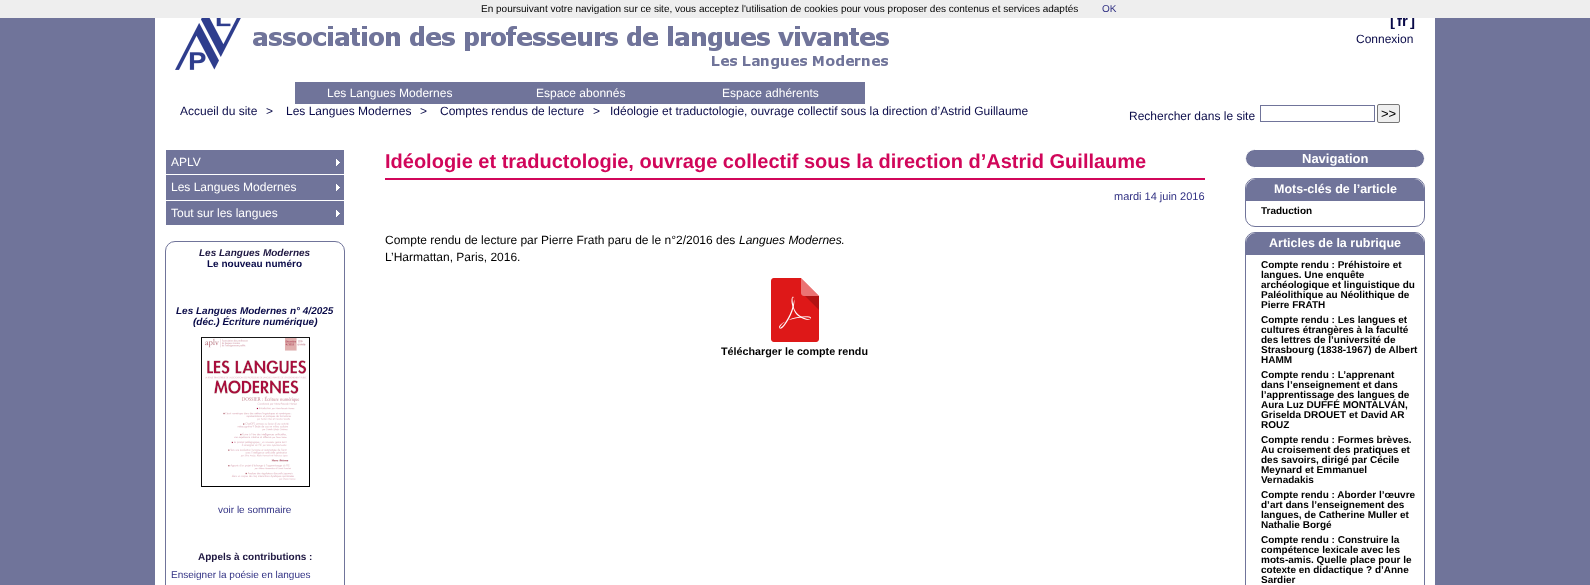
<svg xmlns="http://www.w3.org/2000/svg" xmlns:xlink="http://www.w3.org/1999/xlink" width="1590" height="585" viewBox="0 0 1590 585">
<style>
.cls-1{font:bold 15px Liberation Sans;fill:#0a0b49}
.cls-2{font:10px Liberation Sans;fill:#323284}
.cls-3{font:10px Liberation Sans;fill:#000000}
.cls-4{font:12px Liberation Sans;fill:#0a0b49}
.cls-5{font:12px Liberation Sans;fill:#ffffff}
.cls-6{font:13px Liberation Sans;fill:#000000}
.cls-7{font:italic bold 10px Liberation Sans;fill:#1e1741}
.cls-8{font:bold 10px Liberation Sans;fill:#0a0b49}
.cls-9{font:italic bold 10px Liberation Sans;fill:#0a0b49}
.cls-10{font:bold 10px Liberation Sans;fill:#1e1741}
.cls-11{font:bold 20px Liberation Sans;fill:#d1065a}
.cls-12{font:11px Liberation Sans;fill:#323284}
.cls-13{font:12px Liberation Sans;fill:#000000}
.cls-14{font:italic 12px Liberation Sans;fill:#000000}
.cls-15{font:bold 10.75px Liberation Sans;fill:#000000}
.cls-16{font:bold 13px Liberation Sans;fill:#ffffff}
.cls-17{font:bold 12.5px Liberation Sans;fill:#ffffff}
.cls-18{font:bold 10px Liberation Sans;fill:#000000}
</style>
<rect width="100%" height="100%" fill="#70749a"/>
<rect fill="#ffffff" x="155" y="18" width="1280" height="567"/>
<image xlink:href="image0.png" x="253" y="26" width="636" height="43"/>
<image xlink:href="image1.png" x="175" y="18" width="66" height="52"/>
<rect fill="#70749a" x="295" y="82" width="570" height="22"/>
<rect fill="none" stroke="#70749a" x="1260.5" y="105.5" width="114" height="16"/>
<rect fill="#efefef" stroke="#767676" x="1377.5" y="104.5" width="22" height="18" rx="1.5"/>
<rect fill="#70749a" x="166" y="150" width="178" height="24"/>
<image xlink:href="image2.png" x="336" y="159" width="4" height="7"/>
<rect fill="#70749a" x="166" y="175" width="178" height="25"/>
<image xlink:href="image2.png" x="336" y="184" width="4" height="7"/>
<rect fill="#70749a" x="166" y="201" width="178" height="24"/>
<image xlink:href="image2.png" x="336" y="210" width="4" height="7"/>
<rect fill="none" stroke="#70749a" x="165.5" y="241.5" width="179" height="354" rx="9.5"/>
<image xlink:href="image3.png" x="201" y="337" width="109" height="150"/>
<rect fill="#d1065a" x="385" y="178" width="820" height="2"/>
<image xlink:href="image4.png" x="771" y="278" width="48" height="64"/>
<rect fill="#70749a" stroke="#ffffff" x="1245.5" y="149.5" width="179" height="18" rx="9"/>
<rect fill="none" stroke="#70749a" x="1245.5" y="178.5" width="179" height="48" rx="9.5"/>
<path fill="#70749a" d="M1256 179H1414C1419.5 179 1424 183.5 1424 189V201H1246V189C1246 183.5 1250.5 179 1256 179Z"/>
<rect fill="none" stroke="#70749a" x="1245.5" y="232.5" width="179" height="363" rx="9.5"/>
<path fill="#70749a" d="M1256 233H1414C1419.5 233 1424 237.5 1424 243V255H1246V243C1246 237.5 1250.5 233 1256 233Z"/>
<text class="cls-1" x="1390" y="26">[</text>
<text class="cls-1" x="1397" y="26">fr</text>
<text class="cls-1" x="1410" y="26">]</text>
<rect fill="#eeeeee" x="0" y="0" width="1590" height="18"/>
<text class="cls-2" x="1102" y="12">OK</text>
<text class="cls-3" x="481" y="12">En poursuivant votre navigation sur ce site, vous acceptez l'utilisation de cookies pour vous proposer des contenus et services adaptés</text>
<text class="cls-4" x="1356" y="43">Connexion</text>
<text class="cls-5" x="327" y="97">Les Langues Modernes</text>
<text class="cls-5" x="536" y="97">Espace abonnés</text>
<text class="cls-5" x="722" y="97">Espace adhérents</text>
<text class="cls-4" x="180" y="115">Accueil du site</text>
<text class="cls-4" x="266" y="115">&gt;</text>
<text class="cls-4" x="286" y="115">Les Langues Modernes</text>
<text class="cls-4" x="420" y="115">&gt;</text>
<text class="cls-4" x="440" y="115">Comptes rendus de lecture</text>
<text class="cls-4" x="593" y="115">&gt;</text>
<text class="cls-4" x="610" y="115">Idéologie et traductologie, ouvrage collectif sous la direction d’Astrid Guillaume</text>
<text class="cls-4" x="1129" y="120">Rechercher dans le site</text>
<text class="cls-6" x="1381" y="118">&gt;&gt;</text>
<text class="cls-5" x="171" y="166">APLV</text>
<text class="cls-5" x="171" y="191">Les Langues Modernes</text>
<text class="cls-5" x="171" y="217">Tout sur les langues</text>
<text class="cls-7" x="199" y="256">Les Langues Modernes</text>
<text class="cls-8" x="207" y="267">Le nouveau numéro</text>
<text class="cls-9" x="176" y="314">Les Langues Modernes n° 4/2025</text>
<text class="cls-9" x="193" y="325">(déc.) Écriture numérique)</text>
<text class="cls-2" x="218" y="513">voir le sommaire</text>
<text class="cls-10" x="198" y="560">Appels à contributions :</text>
<text class="cls-2" x="171" y="578">Enseigner la poésie en langues</text>
<text class="cls-11" x="385" y="168">Idéologie et traductologie, ouvrage collectif sous la direction d’Astrid Guillaume</text>
<text class="cls-12" x="1114" y="200">mardi 14 juin 2016</text>
<text class="cls-13" x="385" y="244">Compte rendu de lecture par Pierre Frath paru de le n°2/2016 des</text>
<text class="cls-14" x="739" y="244">Langues Modernes</text>
<text class="cls-13" x="841" y="244">.</text>
<text class="cls-13" x="385" y="261">L’Harmattan, Paris, 2016.</text>
<text class="cls-15" x="721" y="355">Télécharger le compte rendu</text>
<text class="cls-16" x="1302" y="163">Navigation</text>
<text class="cls-17" x="1274" y="193">Mots-clés de l’article</text>
<text class="cls-18" x="1261" y="214">Traduction</text>
<text class="cls-17" x="1269" y="247">Articles de la rubrique</text>
<text class="cls-18"><tspan x="1261" y="268">Compte rendu : Préhistoire et</tspan><tspan x="1261" y="278">langues. Une enquête</tspan><tspan x="1261" y="288">archéologique et linguistique du</tspan><tspan x="1261" y="298">Paléolithique au Néolithique de</tspan><tspan x="1261" y="308">Pierre FRATH</tspan><tspan x="1261" y="323">Compte rendu : Les langues et</tspan><tspan x="1261" y="333">cultures étrangères à la faculté</tspan><tspan x="1261" y="343">des lettres de l’université de</tspan><tspan x="1261" y="353">Strasbourg (1838‐1967) de Albert</tspan><tspan x="1261" y="363">HAMM</tspan><tspan x="1261" y="378">Compte rendu : L’apprenant</tspan><tspan x="1261" y="388">dans l’enseignement et dans</tspan><tspan x="1261" y="398">l’apprentissage des langues de</tspan><tspan x="1261" y="408">Aura Luz DUFFÉ MONTALVÁN,</tspan><tspan x="1261" y="418">Griselda DROUET</tspan></text>
<text class="cls-18" x="1349" y="418">et David</text>
<text class="cls-18" x="1390" y="418">AR</text>
<text class="cls-18"><tspan x="1261" y="428">ROUZ</tspan><tspan x="1261" y="443">Compte rendu : Formes brèves.</tspan><tspan x="1261" y="453">Au croisement des pratiques et</tspan><tspan x="1261" y="463">des savoirs, dirigé par Cécile</tspan><tspan x="1261" y="473">Meynard et Emmanuel</tspan><tspan x="1261" y="483">Vernadakis</tspan><tspan x="1261" y="498">Compte rendu : Aborder l’œuvre</tspan><tspan x="1261" y="508">d’art dans l’enseignement des</tspan><tspan x="1261" y="518">langues, de Catherine Muller et</tspan><tspan x="1261" y="528">Nathalie Borgé</tspan><tspan x="1261" y="543">Compte rendu : Construire la</tspan><tspan x="1261" y="553">compétence lexicale avec les</tspan><tspan x="1261" y="563">mots-amis. Quelle place pour le</tspan><tspan x="1261" y="573">cotexte en didactique</tspan></text>
<text class="cls-18" x="1366" y="573">? d’Anne</text>
<text class="cls-18" x="1261" y="583">Sardier</text>
</svg>
